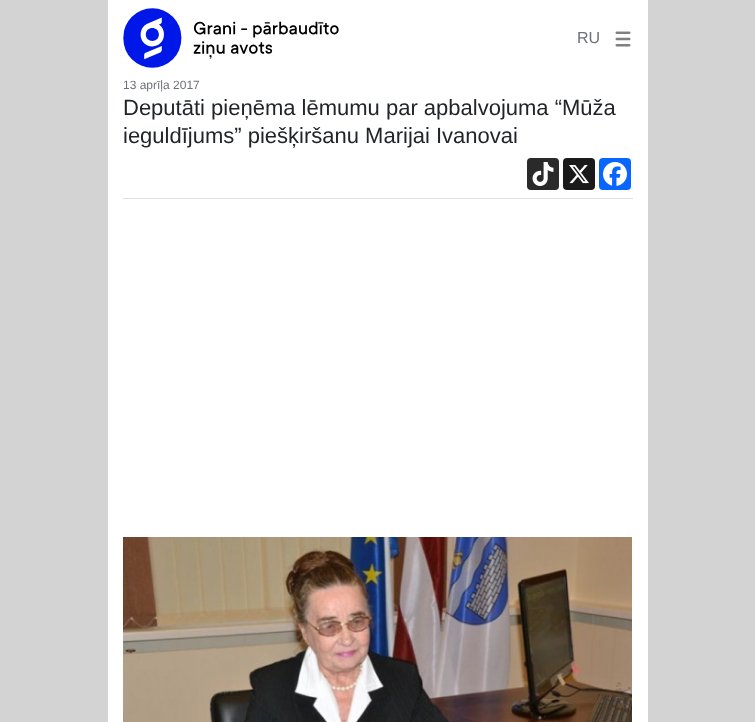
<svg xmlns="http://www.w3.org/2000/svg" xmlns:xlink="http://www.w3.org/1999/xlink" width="755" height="722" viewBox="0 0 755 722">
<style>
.cls-1{font:16px Liberation Sans;fill:#6e7179}
.cls-2{font:12px Liberation Sans;fill:#6e7179}
.cls-3{font:22px Liberation Sans;fill:#212529}
</style>
<rect width="100%" height="100%" fill="#d3d3d3"/>
<rect fill="#ffffff" x="108" y="0" width="540" height="722"/>
<image xlink:href="image0.png" x="123" y="8" width="216" height="60"/>
<image xlink:href="image1.png" x="615" y="31" width="16" height="16"/>
<rect fill="#dee2e6" x="123" y="198" width="510" height="1"/>
<rect fill="#2a2a2a" x="527" y="158" width="32" height="32" rx="4"/>
<image xlink:href="image2.png" x="532" y="162" width="22" height="24"/>
<rect fill="#1a1a1a" x="563" y="158" width="32" height="32" rx="4"/>
<image xlink:href="image3.png" x="569" y="165" width="20" height="19"/>
<rect fill="#0866ff" x="599" y="158" width="32" height="32" rx="4"/>
<image xlink:href="image4.png" x="603" y="162" width="24" height="24"/>
<image xlink:href="image5.png" x="123" y="537" width="509" height="185"/>
<text class="cls-1" x="577" y="43">RU</text>
<text class="cls-2" x="123" y="89">13 aprīļa 2017</text>
<text class="cls-3"><tspan x="123" y="115">Deputāti pieņēma lēmumu par apbalvojuma “Mūža</tspan><tspan x="123" y="143">ieguldījums” piešķiršanu Marijai Ivanovai</tspan></text>
</svg>
